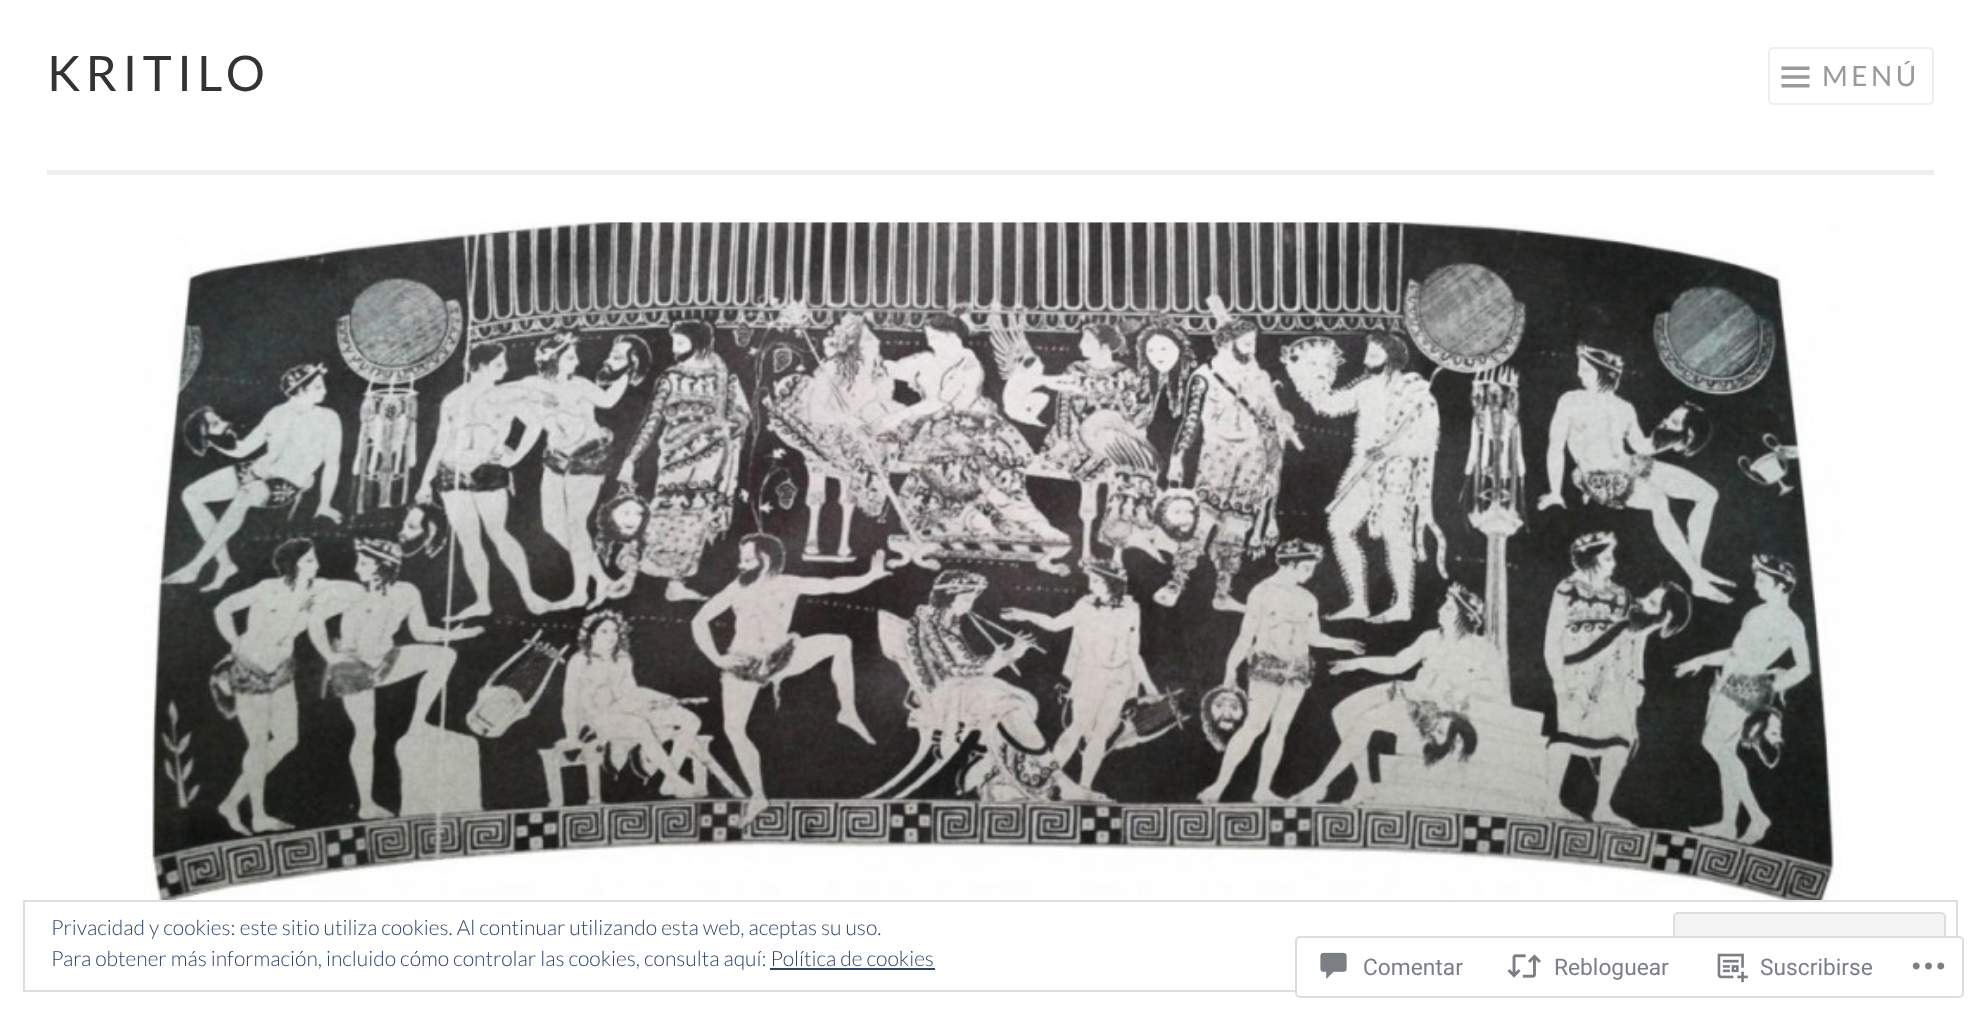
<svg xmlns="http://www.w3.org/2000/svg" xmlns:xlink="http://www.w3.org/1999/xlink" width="1981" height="1014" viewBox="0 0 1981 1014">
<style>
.cls-1{font:49px Lato;letter-spacing:5.25px;fill:#333333}
.cls-2{font:28px Lato;letter-spacing:3.5px;fill:#999999}
.cls-3{font:300 21px Lato;fill:#2e4467}
.cls-4{font:22.75px Roboto;fill:#7b7f85}
</style>
<rect width="100%" height="100%" fill="#ffffff"/>
<rect fill="#eeeeee" x="47" y="170" width="1887" height="5"/>
<rect fill="none" stroke="#eeeeee" stroke-width="2" x="1769" y="48" width="164" height="56" rx="4"/>
<image xlink:href="image0.png" x="1781" y="66" width="29" height="22"/>
<image xlink:href="image1.png" x="144" y="222" width="1698" height="678"/>
<rect fill="none" stroke="#dedede" stroke-width="2" x="24" y="901" width="1933" height="90"/>
<rect fill="#f3f3f3" stroke="#dedede" stroke-width="2" x="1674" y="913" width="271" height="66" rx="4"/>
<rect fill="#2e4467" x="770" y="968" width="165" height="2"/>
<rect fill="#ffffff" fill-opacity="0.98" stroke="#dddddf" stroke-width="2" x="1296" y="937" width="667" height="60" rx="4"/>
<image xlink:href="image2.png" x="1320" y="952" width="27" height="27"/>
<image xlink:href="image3.png" x="1507" y="954" width="34" height="24"/>
<image xlink:href="image4.png" x="1717" y="953" width="31" height="30"/>
<image xlink:href="image5.png" x="1912" y="962" width="33" height="8"/>
<text class="cls-1" x="47" y="91">KRITILO</text>
<text class="cls-2" x="1822" y="86">MENÚ</text>
<text class="cls-3"><tspan x="51" y="935">Privacidad y cookies: este sitio utiliza cookies. Al continuar utilizando esta web, aceptas su uso.</tspan><tspan x="51" y="966">Para obtener más información, incluido cómo controlar las cookies, consulta aquí: Política de cookies</tspan></text>
<text class="cls-4" x="1363" y="975">Comentar</text>
<text class="cls-4" x="1554" y="975">Rebloguear</text>
<text class="cls-4" x="1760" y="975">Suscribirse</text>
</svg>
